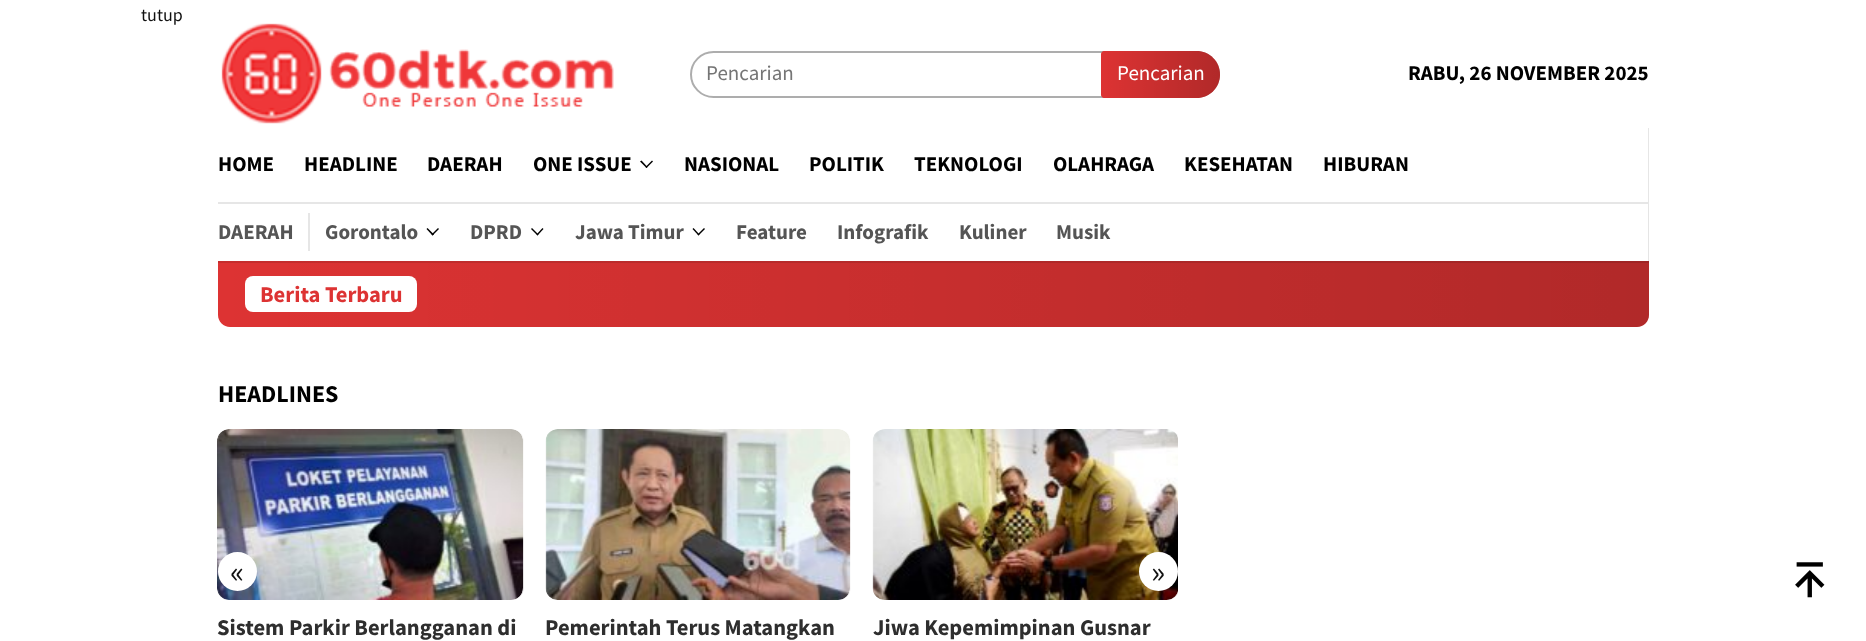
<svg xmlns="http://www.w3.org/2000/svg" xmlns:xlink="http://www.w3.org/1999/xlink" width="1866" height="641" viewBox="0 0 1866 641">
<style>
.cls-1{font:18px Source Sans Pro;fill:#111111}
.cls-2{font:21px Source Sans Pro;fill:#757575}
.cls-3{font:21px Source Sans Pro;fill:#ffffff}
.cls-4{font:bold 21px Source Sans Pro;fill:#000000}
.cls-5{font:bold 21px Source Sans Pro;fill:#555555}
.cls-6{font:bold 22.5px Source Sans Pro;fill:#dd3333}
.cls-7{font:bold 24px Source Sans Pro;fill:#000000}
.cls-8{font:33px Source Sans Pro;fill:#111111}
.cls-9{font:bold 22.5px Source Sans Pro;fill:#2e2e2e}
</style>
<defs>
<linearGradient id="g1" gradientUnits="userSpaceOnUse" x1="1101" y1="74" x2="1220" y2="74"><stop offset="0" stop-color="#000000" stop-opacity="0"/><stop offset="1" stop-color="#000000" stop-opacity="0.2"/></linearGradient>
<linearGradient id="g2" gradientUnits="userSpaceOnUse" x1="218" y1="294" x2="1649" y2="294"><stop offset="0" stop-color="#000000" stop-opacity="0"/><stop offset="1" stop-color="#000000" stop-opacity="0.2"/></linearGradient>
</defs>
<rect width="100%" height="100%" fill="#ffffff"/>
<image xlink:href="image0.png" x="221" y="23" width="393" height="101"/>
<rect fill="none" stroke="#adadad" stroke-width="2" x="691" y="52" width="528" height="45" rx="22.5"/>
<path fill="#dd3333" d="M1104 51H1196.5C1209.5 51 1220 61.5 1220 74.5C1220 87.5 1209.5 98 1196.5 98H1104C1102.5 98 1101 96.5 1101 95V54C1101 52.5 1102.5 51 1104 51Z"/>
<path fill="url(#g1)" d="M1104 51H1196.5C1209.5 51 1220 61.5 1220 74.5C1220 87.5 1209.5 98 1196.5 98H1104C1102.5 98 1101 96.5 1101 95V54C1101 52.5 1102.5 51 1104 51Z"/>
<path fill="#e6e6e6" d="M218 202V204H1649V128H1648V202Z"/>
<path fill="#000000" d="M652 160.5L653 161.5L646.5 168L645.5 167Z"/>
<path fill="#000000" d="M641.5 160.5L647.5 167L646.5 168L640 161.5Z"/>
<path fill="#dd3333" d="M218 261H1649V315C1649 321.5 1643.5 327 1637 327H230C223.5 327 218 321.5 218 315Z"/>
<path fill="url(#g2)" d="M218 261H1649V315C1649 321.5 1643.5 327 1637 327H230C223.5 327 218 321.5 218 315Z"/>
<path fill="#000000" fill-opacity="0.1" d="M218 261V263H1649V204H1648V261Z"/>
<rect fill="#e6e6e6" x="308" y="213" width="2" height="38"/>
<path fill="#000000" d="M438 228L439 229L432.5 235.5L431.5 234.5Z"/>
<path fill="#000000" d="M427.5 228L434 234.5L432.5 235.5L426.5 229Z"/>
<path fill="#000000" d="M542.5 228L543.5 229L537.5 235.5L536.5 234.5Z"/>
<path fill="#000000" d="M532 228L538.5 234.5L537.5 235.5L531 229Z"/>
<path fill="#000000" d="M704 228L705 229L698.5 235.5L697.5 234.5Z"/>
<path fill="#000000" d="M693.5 228L699.5 234.5L698.5 235.5L692.5 229Z"/>
<rect fill="#ffffff" x="245" y="276" width="172" height="36" rx="8"/>
<image xlink:href="image1.png" x="217" y="429" width="307" height="171"/>
<circle fill="#ffffff" cx="237.5" cy="571.5" r="19.5"/>
<image xlink:href="image3.png" x="872" y="429" width="306" height="171"/>
<circle fill="#ffffff" cx="1158.5" cy="571.5" r="19.5"/>
<image xlink:href="image2.png" x="545" y="429" width="306" height="171"/>
<image xlink:href="image4.png" x="1795" y="562" width="30" height="36"/>
<text class="cls-1" x="141" y="21">tutup</text>
<text class="cls-2" x="706" y="80">Pencarian</text>
<text class="cls-3" x="1117" y="80">Pencarian</text>
<text class="cls-4" x="1408" y="80">RABU, 26 NOVEMBER 2025</text>
<text class="cls-4" x="218" y="171">HOME</text>
<text class="cls-4" x="304" y="171">HEADLINE</text>
<text class="cls-4" x="427" y="171">DAERAH</text>
<text class="cls-4" x="533" y="171">ONE ISSUE</text>
<text class="cls-4" x="684" y="171">NASIONAL</text>
<text class="cls-4" x="809" y="171">POLITIK</text>
<text class="cls-4" x="914" y="171">TEKNOLOGI</text>
<text class="cls-4" x="1053" y="171">OLAHRAGA</text>
<text class="cls-4" x="1184" y="171">KESEHATAN</text>
<text class="cls-4" x="1323" y="171">HIBURAN</text>
<text class="cls-5" x="218" y="239">DAERAH</text>
<text class="cls-5" x="325" y="239">Gorontalo</text>
<text class="cls-5" x="470" y="239">DPRD</text>
<text class="cls-5" x="575" y="239">Jawa Timur</text>
<text class="cls-5" x="736" y="239">Feature</text>
<text class="cls-5" x="837" y="239">Infografik</text>
<text class="cls-5" x="959" y="239">Kuliner</text>
<text class="cls-5" x="1056" y="239">Musik</text>
<text class="cls-6" x="260" y="302">Berita Terbaru</text>
<text class="cls-7" x="218" y="402">HEADLINES</text>
<text class="cls-8" x="230" y="583">«</text>
<text class="cls-8" x="1151" y="583">»</text>
<text class="cls-9" x="217" y="635">Sistem Parkir Berlangganan di</text>
<text class="cls-9" x="545" y="635">Pemerintah Terus Matangkan</text>
<text class="cls-9" x="873" y="635">Jiwa Kepemimpinan Gusnar</text>
</svg>
